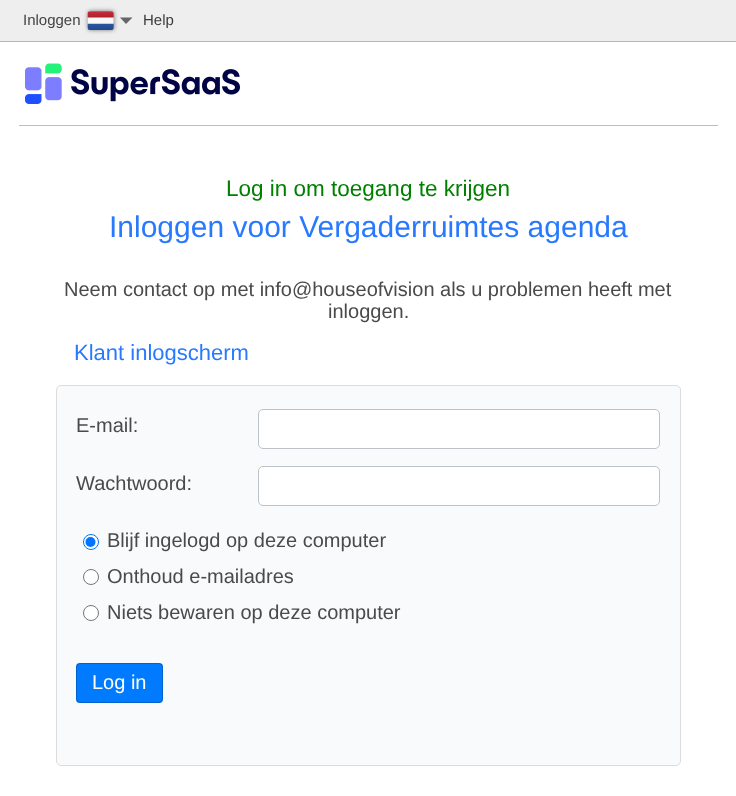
<svg xmlns="http://www.w3.org/2000/svg" xmlns:xlink="http://www.w3.org/1999/xlink" width="736" height="796" viewBox="0 0 736 796">
<style>
.cls-1{font:15px Liberation Sans;fill:#444444}
.cls-2{font:15px Liberation Sans;fill:#3c3c3d}
.cls-3{font:22.5px Liberation Sans;fill:#008000}
.cls-4{font:30px Liberation Sans;fill:#2979ff}
.cls-5{font:20px Liberation Sans;fill:#4a4a4a}
.cls-6{font:22px Liberation Sans;fill:#2979ff}
.cls-7{font:20px Liberation Sans;fill:#ffffff}
</style>
<rect width="100%" height="100%" fill="#ffffff"/>
<rect fill="#eeeeee" x="0" y="0" width="736" height="41"/>
<rect fill="#b7b5b5" x="0" y="41" width="736" height="1"/>
<rect fill="#777777" filter="blur(2px)" x="88" y="11" width="26" height="19" rx="2.5"/>
<image xlink:href="image0.png" x="87" y="11" width="27" height="19"/>
<path fill="#666666" d="M120 17.5H132.5L126 24Z"/>
<image xlink:href="image1.png" x="25" y="63" width="215" height="41"/>
<rect fill="#bdbdbd" x="19" y="125" width="699" height="1"/>
<rect fill="#f9fafb" stroke="#dcdcdc" x="56.5" y="385.5" width="624" height="380" rx="4.5"/>
<rect fill="#ffffff" stroke="#bcc2c8" x="258.5" y="409.5" width="401" height="39" rx="4.5"/>
<rect fill="#ffffff" stroke="#bcc2c8" x="258.5" y="466.5" width="401" height="39" rx="4.5"/>
<circle fill="#ffffff" stroke="#0075ff" cx="91" cy="542" r="7.5"/>
<circle fill="#0075ff" cx="90.5" cy="542" r="5"/>
<circle fill="#ffffff" stroke="#767676" cx="91" cy="577" r="7.5"/>
<circle fill="#ffffff" stroke="#767676" cx="91" cy="613" r="7.5"/>
<rect fill="#007bff" x="76" y="663" width="87" height="40" rx="4"/>
<rect fill="none" stroke="#000000" stroke-opacity="0.2" x="76.5" y="663.5" width="86" height="39" rx="3.5"/>
<text class="cls-1" x="23" y="25">Inloggen</text>
<text class="cls-2" x="143" y="25">Help</text>
<text class="cls-3" x="226" y="196">Log in om toegang te krijgen</text>
<text class="cls-4" x="109" y="237">Inloggen voor Vergaderruimtes agenda</text>
<text class="cls-5" x="64" y="296">Neem contact op met info@houseofvision als u problemen heeft met</text>
<text class="cls-5" x="328" y="318">inloggen.</text>
<text class="cls-6" x="74" y="360">Klant inlogscherm</text>
<text class="cls-5" x="76" y="432">E-mail:</text>
<text class="cls-5" x="76" y="490">Wachtwoord:</text>
<text class="cls-5"><tspan x="107" y="547">Blijf ingelogd op deze computer</tspan><tspan x="107" y="583">Onthoud e-mailadres</tspan><tspan x="107" y="619">Niets bewaren op deze computer</tspan></text>
<text class="cls-7" x="92" y="689">Log in</text>
</svg>
